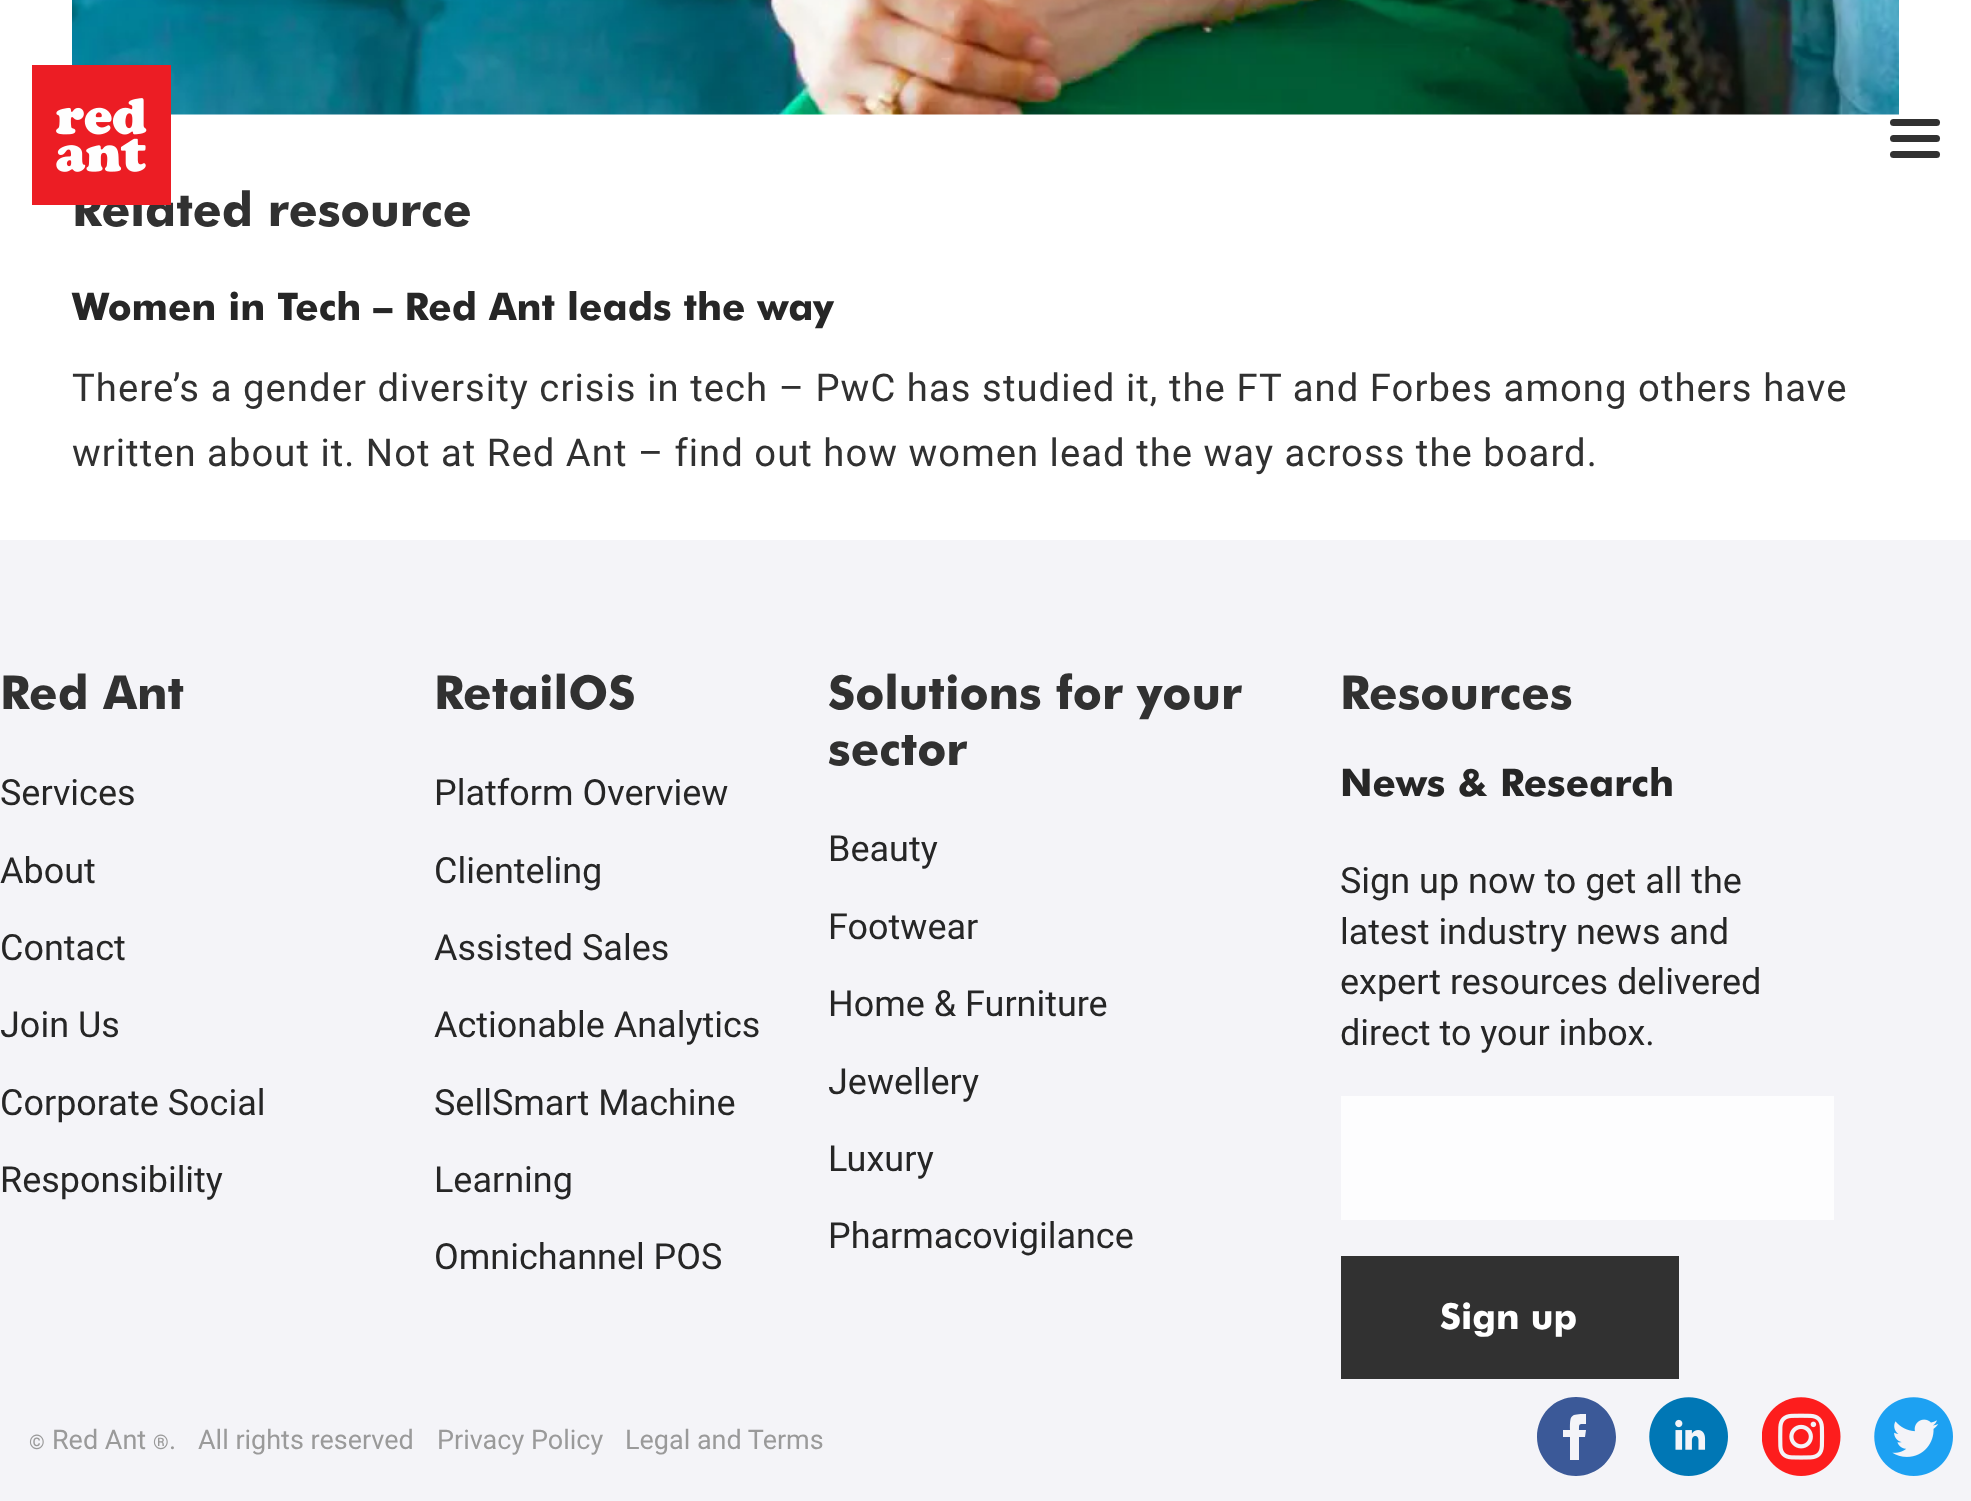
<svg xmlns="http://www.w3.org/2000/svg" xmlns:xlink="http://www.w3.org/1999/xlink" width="1971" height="1501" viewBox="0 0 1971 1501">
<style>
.cls-1{font:900 47.25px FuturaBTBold;fill:#313131}
.cls-2{font:900 38.3px FuturaBTBold;fill:#262626}
.cls-3{font:38.25px Roboto;letter-spacing:1.05px;fill:#313131}
.cls-4{font:900 46.75px FuturaBTBold;fill:#313131}
.cls-5{font:36px Roboto;fill:#262626}
.cls-6{font:900 38.25px FuturaBTBold;fill:#262626}
.cls-7{font:900 36px FuturaBTBold;fill:#ffffff}
.cls-8{font:20px Roboto;fill:#9a9a9a}
.cls-9{font:27px Roboto;fill:#9a9a9a}
</style>
<rect width="100%" height="100%" fill="#ffffff"/>
<rect fill="#313131" x="1890" y="119" width="50" height="7" rx="3.5"/>
<rect fill="#313131" x="1890" y="135" width="50" height="7" rx="3.5"/>
<rect fill="#313131" x="1890" y="151" width="50" height="7" rx="3.5"/>
<image xlink:href="image1.png" x="72" y="0" width="1827" height="115"/>
<rect fill="#f4f4f8" x="0" y="540" width="1971" height="961"/>
<rect fill="#fdfdfe" x="1341" y="1096" width="493" height="124"/>
<rect fill="#313131" x="1341" y="1256" width="338" height="123"/>
<path fill="#3b5998" fill-rule="evenodd" d="M1586 1424C1579 1424 1579 1423 1579 1430H1586L1585 1437H1579V1460H1570V1437H1563V1430H1570C1570 1415 1570 1414 1586 1414ZM1576 1397C1554 1397 1537 1415 1537 1437C1537 1458 1554 1476 1576 1476C1598 1476 1616 1458 1616 1437C1616 1415 1598 1397 1576 1397Z"/>
<image xlink:href="image2.png" x="1649" y="1397" width="79" height="79"/>
<image xlink:href="image3.png" x="1762" y="1397" width="79" height="79"/>
<image xlink:href="image4.png" x="1874" y="1397" width="79" height="79"/>
<text class="cls-1" x="72" y="226">Related resource</text>
<image xlink:href="image0.png" x="32" y="65" width="139" height="140"/>
<text class="cls-2" x="72" y="320">Women in Tech – Red Ant leads the way</text>
<text class="cls-3"><tspan x="72" y="401">There’s a gender diversity crisis in tech – PwC has studied it, the FT and Forbes among others have</tspan><tspan x="72" y="466" word-spacing="-0.1">written about it. Not at Red Ant – find out how women lead the way across the board.</tspan></text>
<text class="cls-4" x="0" y="709">Red Ant</text>
<text class="cls-5" x="0" y="805">Services</text>
<text class="cls-5" x="0" y="883">About</text>
<text class="cls-5" x="0" y="960">Contact</text>
<text class="cls-5" x="0" y="1037">Join Us</text>
<text class="cls-5" x="0" y="1115">Corporate Social</text>
<text class="cls-5" x="0" y="1192">Responsibility</text>
<text class="cls-4" x="434" y="709">RetailOS</text>
<text class="cls-5" x="434" y="805">Platform Overview</text>
<text class="cls-5" x="434" y="883">Clienteling</text>
<text class="cls-5" x="434" y="960">Assisted Sales</text>
<text class="cls-5" x="434" y="1037">Actionable Analytics</text>
<text class="cls-5" x="434" y="1115">SellSmart Machine</text>
<text class="cls-5" x="434" y="1192">Learning</text>
<text class="cls-5" x="434" y="1269">Omnichannel POS</text>
<text class="cls-4"><tspan x="828" y="709">Solutions for your</tspan><tspan x="828" y="765">sector</tspan></text>
<text class="cls-5" x="828" y="861">Beauty</text>
<text class="cls-5" x="828" y="939">Footwear</text>
<text class="cls-5" x="828" y="1016">Home &amp; Furniture</text>
<text class="cls-5" x="828" y="1094">Jewellery</text>
<text class="cls-5" x="828" y="1171">Luxury</text>
<text class="cls-5" x="828" y="1248">Pharmacovigilance</text>
<text class="cls-4" x="1340" y="709">Resources</text>
<text class="cls-6" x="1340" y="796">News &amp; Research</text>
<text class="cls-5"><tspan x="1340" y="893">Sign up now to get all the</tspan><tspan x="1340" y="944">latest industry news and</tspan><tspan x="1340" y="994">expert resources delivered</tspan><tspan x="1340" y="1045">direct to your inbox.</tspan></text>
<text class="cls-7" x="1440" y="1329">Sign up</text>
<text class="cls-8" x="29" y="1449">©</text>
<text class="cls-9" x="52" y="1449">Red Ant</text>
<text class="cls-8" x="153" y="1449">®</text>
<text class="cls-9" x="169" y="1449">.</text>
<text class="cls-9" x="198" y="1449">All rights reserved</text>
<text class="cls-9" x="437" y="1449">Privacy Policy</text>
<text class="cls-9" x="625" y="1449">Legal and Terms</text>
</svg>
